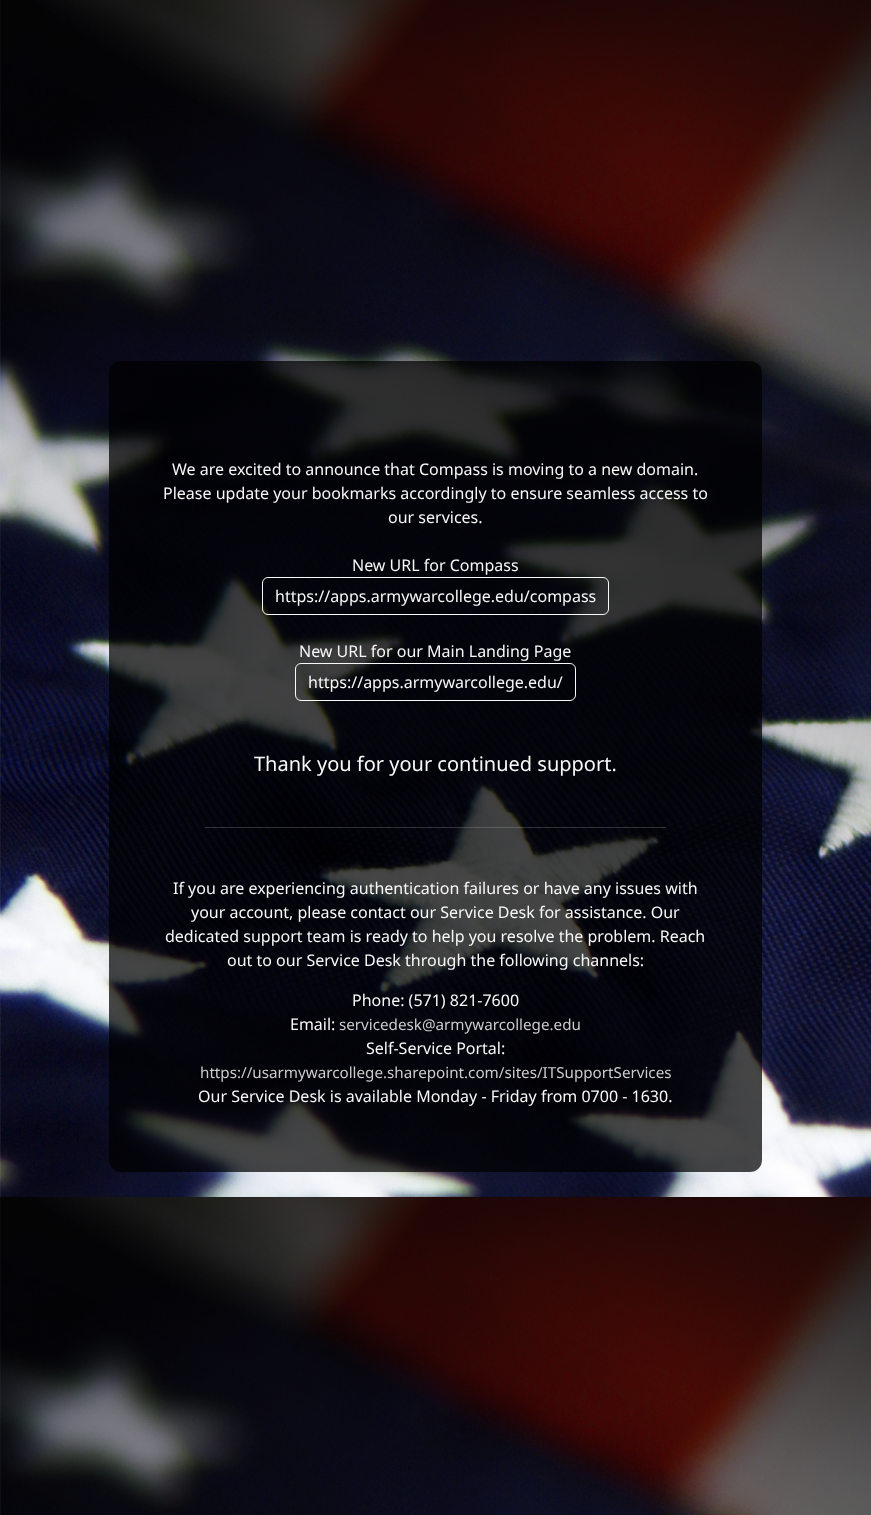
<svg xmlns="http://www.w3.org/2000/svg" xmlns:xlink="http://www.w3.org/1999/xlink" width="871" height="1515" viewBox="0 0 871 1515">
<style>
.cls-1{font:16px Noto Sans;fill:#f8f8f8}
.cls-2{font:20px Noto Sans;fill:#f8f8f8}
.cls-3{font:15.2px Noto Sans;fill:#cccccc}
</style>
<rect width="100%" height="100%" fill="#ffffff"/>
<image xlink:href="image0.png" x="0" y="0" width="871" height="1515"/>
<rect fill="#000000" fill-opacity="0.72" x="109" y="361" width="653" height="811" rx="12"/>
<rect fill="none" stroke="#f8f9fa" x="262.5" y="577.5" width="346" height="37" rx="5.5"/>
<rect fill="none" stroke="#f8f9fa" x="295.5" y="663.5" width="280" height="37" rx="5.5"/>
<rect fill="#b9b9b9" fill-opacity="0.25" x="205" y="827" width="461" height="1"/>
<text class="cls-1" x="172" y="475">We are excited to announce that Compass is moving to a new domain.</text>
<text class="cls-1" x="163" y="499">Please update your bookmarks accordingly to ensure seamless access to</text>
<text class="cls-1" x="388" y="523">our services.</text>
<text class="cls-1" x="352" y="571">New URL for Compass</text>
<text class="cls-1" x="275" y="602">https://apps.armywarcollege.edu/compass</text>
<text class="cls-1" x="299" y="657">New URL for our Main Landing Page</text>
<text class="cls-1" x="308" y="688">https://apps.armywarcollege.edu/</text>
<text class="cls-2" x="254" y="771">Thank you for your continued support.</text>
<text class="cls-1" x="173" y="894">If you are experiencing authentication failures or have any issues with</text>
<text class="cls-1" x="191" y="918">your account, please contact our Service Desk for assistance. Our</text>
<text class="cls-1" x="165" y="942">dedicated support team is ready to help you resolve the problem. Reach</text>
<text class="cls-1" x="227" y="966">out to our Service Desk through the following channels:</text>
<text class="cls-1" x="352" y="1006">Phone: (571) 821-7600</text>
<text class="cls-1" x="290" y="1030">Email:</text>
<text class="cls-3" x="339" y="1030">servicedesk@armywarcollege.edu</text>
<text class="cls-1" x="366" y="1054">Self-Service Portal:</text>
<text class="cls-3" x="200" y="1078">https://usarmywarcollege.sharepoint.com/sites/ITSupportServices</text>
<text class="cls-1" x="198" y="1102">Our Service Desk is available Monday - Friday from 0700 - 1630.</text>
</svg>
